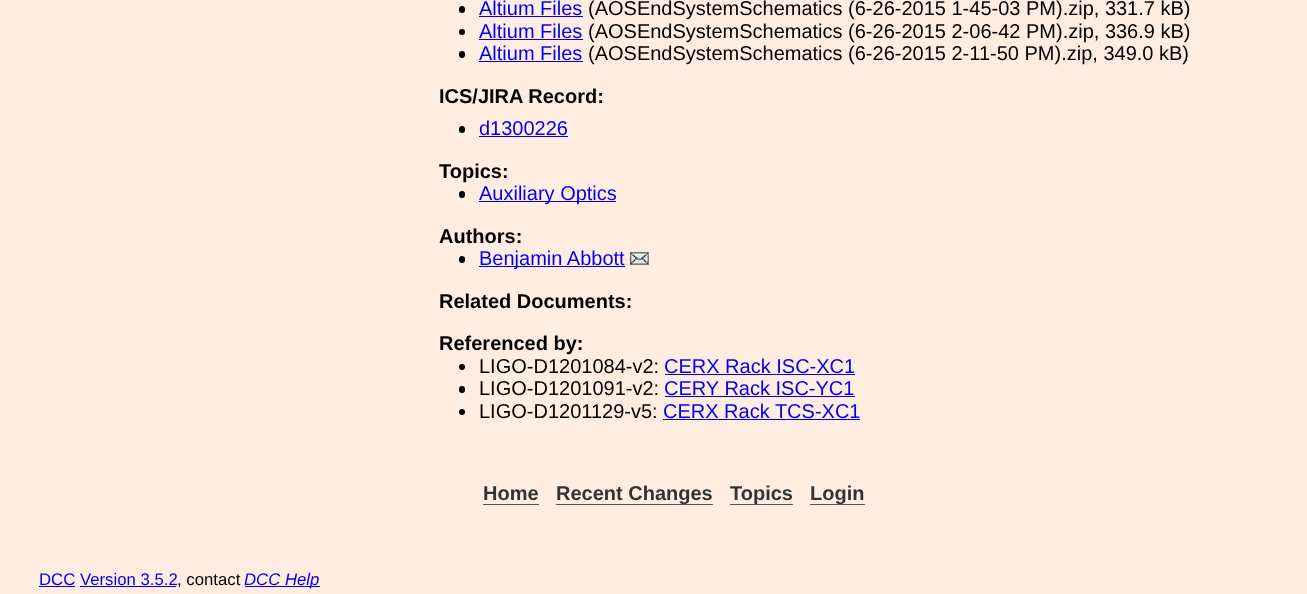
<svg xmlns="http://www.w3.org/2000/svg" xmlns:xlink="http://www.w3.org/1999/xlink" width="1307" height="594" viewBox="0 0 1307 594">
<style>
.cls-1{font:20px Liberation Sans;fill:#0000ee}
.cls-2{font:20px Liberation Sans;fill:#000000}
.cls-3{font:bold 20px Liberation Sans;fill:#000000}
.cls-4{font:bold 20px Liberation Sans;fill:#333333}
.cls-5{font:16.75px Liberation Sans;fill:#0000ee}
.cls-6{font:16.75px Liberation Sans;fill:#000000}
.cls-7{font:italic 16.75px Liberation Sans;fill:#0000ee}
</style>
<rect width="100%" height="100%" fill="#ffede2"/>
<rect fill="#000000" x="459" y="6" width="6" height="7" rx="3"/>
<rect fill="#0000ee" x="479" y="16" width="104" height="1"/>
<circle fill="#000000" cx="462" cy="32" r="3"/>
<rect fill="#0000ee" x="479" y="39" width="104" height="1"/>
<rect fill="#000000" x="459" y="51" width="6" height="7" rx="3"/>
<rect fill="#0000ee" x="479" y="61" width="104" height="1"/>
<rect fill="#000000" x="459" y="126" width="6" height="7" rx="3"/>
<rect fill="#0000ee" x="479" y="136" width="89" height="1"/>
<rect fill="#000000" x="459" y="191" width="6" height="7" rx="3"/>
<rect fill="#0000ee" x="479" y="201" width="137" height="1"/>
<rect fill="#000000" x="459" y="256" width="6" height="7" rx="3"/>
<rect fill="#0000ee" x="479" y="266" width="146" height="1"/>
<image xlink:href="image0.png" x="630" y="252" width="19" height="13"/>
<circle fill="#000000" cx="462" cy="367" r="3"/>
<rect fill="#0000ee" x="665" y="374" width="190" height="1"/>
<rect fill="#000000" x="459" y="386" width="6" height="7" rx="3"/>
<rect fill="#0000ee" x="665" y="396" width="190" height="1"/>
<circle fill="#000000" cx="462" cy="412" r="3"/>
<rect fill="#0000ee" x="663" y="419" width="197" height="1"/>
<rect fill="#555555" x="483" y="504" width="56" height="1"/>
<rect fill="#555555" x="556" y="504" width="157" height="1"/>
<rect fill="#555555" x="730" y="504" width="63" height="1"/>
<rect fill="#555555" x="810" y="504" width="55" height="1"/>
<rect fill="#0000ee" x="39" y="586" width="36" height="1"/>
<rect fill="#0000ee" x="80" y="586" width="96" height="1"/>
<rect fill="#0000ee" x="245" y="586" width="75" height="1"/>
<text class="cls-1" x="479" y="15">Altium Files</text>
<text class="cls-2" x="588" y="15">(AOSEndSystemSchematics (6-26-2015 1-45-03 PM).zip, 331.7 kB)</text>
<text class="cls-1" x="479" y="38">Altium Files</text>
<text class="cls-2" x="588" y="38">(AOSEndSystemSchematics (6-26-2015 2-06-42 PM).zip, 336.9 kB)</text>
<text class="cls-1" x="479" y="60">Altium Files</text>
<text class="cls-2" x="588" y="60">(AOSEndSystemSchematics (6-26-2015 2-11-50 PM).zip, 349.0 kB)</text>
<text class="cls-3" x="439" y="103">ICS/JIRA Record:</text>
<text class="cls-1" x="479" y="135">d1300226</text>
<text class="cls-3" x="439" y="178">Topics:</text>
<text class="cls-1" x="479" y="200">Auxiliary Optics</text>
<text class="cls-3" x="439" y="243">Authors:</text>
<text class="cls-1" x="479" y="265">Benjamin Abbott</text>
<text class="cls-3" x="439" y="308">Related Documents:</text>
<text class="cls-3" x="439" y="350">Referenced by:</text>
<text class="cls-2" x="479" y="373">LIGO-D1201084-v2:</text>
<text class="cls-1" x="664" y="373">CERX Rack ISC-XC1</text>
<text class="cls-2" x="479" y="395">LIGO-D1201091-v2:</text>
<text class="cls-1" x="664" y="395">CERY Rack ISC-YC1</text>
<text class="cls-2" x="479" y="418">LIGO-D1201129-v5:</text>
<text class="cls-1" x="663" y="418">CERX Rack TCS-XC1</text>
<text class="cls-4" x="483" y="500">Home</text>
<text class="cls-4" x="556" y="500">Recent Changes</text>
<text class="cls-4" x="730" y="500">Topics</text>
<text class="cls-4" x="810" y="500">Login</text>
<text class="cls-5" x="39" y="585">DCC Version 3.5.2</text>
<text class="cls-6" x="177" y="585">, contact</text>
<text class="cls-7" x="244" y="585">DCC Help</text>
</svg>
